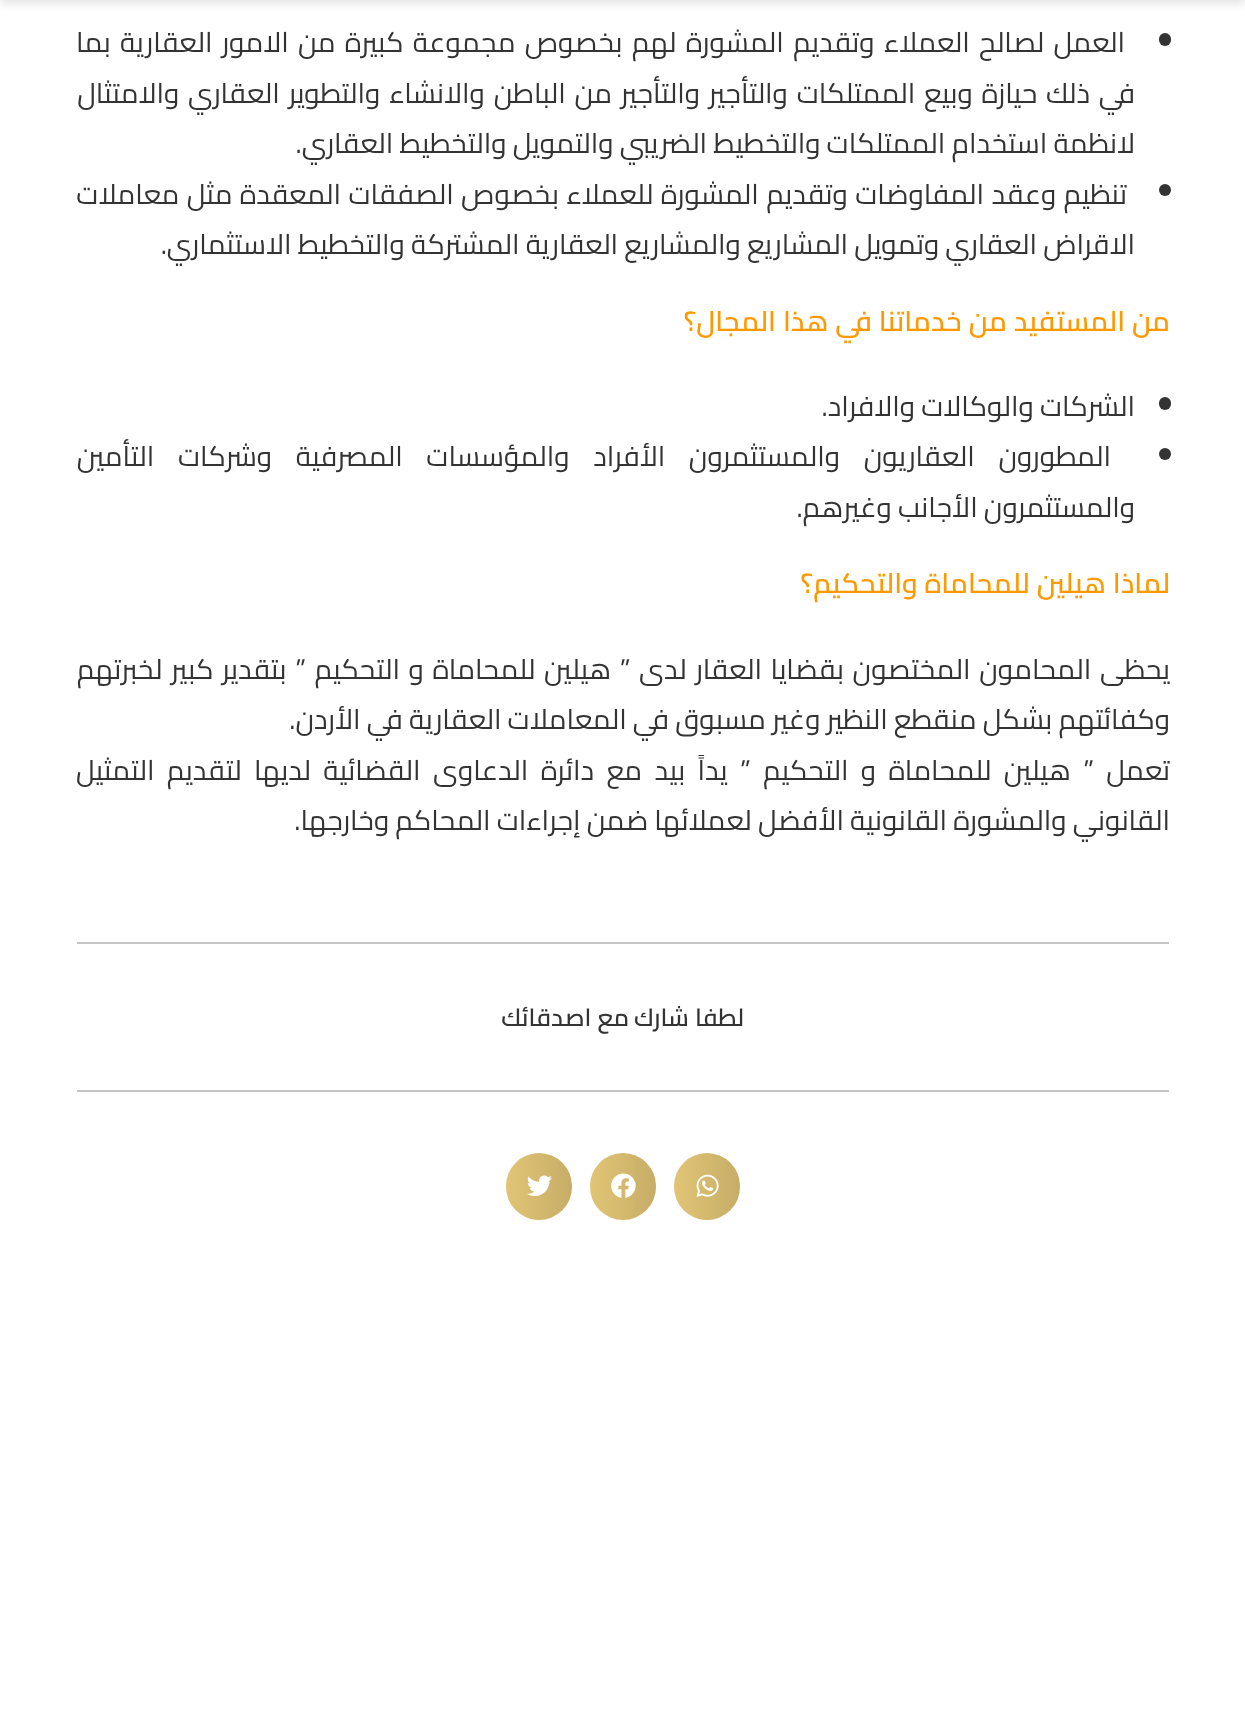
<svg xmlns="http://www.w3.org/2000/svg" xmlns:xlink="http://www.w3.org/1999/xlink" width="1245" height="1713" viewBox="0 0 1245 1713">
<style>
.cls-1{font:28px Cairo;direction:rtl;fill:#333333}
.cls-2{font:600 28px Cairo;direction:rtl;fill:#ff9900}
.cls-3{font:600 24.5px Cairo;direction:rtl;fill:#333333}
</style>
<defs>
<linearGradient id="g1" gradientUnits="userSpaceOnUse" x1="740" y1="1187" x2="674" y2="1187"><stop offset="0" stop-color="#000000" stop-opacity="0.12"/><stop offset="1" stop-color="#000000" stop-opacity="0"/></linearGradient>
<linearGradient id="g2" gradientUnits="userSpaceOnUse" x1="656" y1="1187" x2="590" y2="1187"><stop offset="0" stop-color="#000000" stop-opacity="0.12"/><stop offset="1" stop-color="#000000" stop-opacity="0"/></linearGradient>
<linearGradient id="g3" gradientUnits="userSpaceOnUse" x1="572" y1="1187" x2="506" y2="1187"><stop offset="0" stop-color="#000000" stop-opacity="0.12"/><stop offset="1" stop-color="#000000" stop-opacity="0"/></linearGradient>
</defs>
<rect width="100%" height="100%" fill="#ffffff"/>
<rect fill="#000000" fill-opacity="0.1" filter="blur(4.5px)" x="0" y="-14" width="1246" height="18"/>
<rect fill="#333333" x="1159" y="33" width="12" height="13" rx="6"/>
<circle fill="#333333" cx="1165" cy="190" r="6"/>
<rect fill="#333333" x="1159" y="397" width="12" height="13" rx="6"/>
<circle fill="#333333" cx="1165" cy="454" r="6"/>
<rect fill="#c5c5c5" x="77" y="942" width="1092" height="2"/>
<rect fill="#c5c5c5" x="77" y="1090" width="1092" height="2"/>
<rect fill="#e1c475" x="674" y="1153" width="66" height="67" rx="33"/>
<rect fill="url(#g1)" x="674" y="1153" width="66" height="67" rx="33"/>
<image xlink:href="image0.png" x="696" y="1174" width="23" height="23"/>
<rect fill="#e1c475" x="590" y="1153" width="66" height="67" rx="33"/>
<rect fill="url(#g2)" x="590" y="1153" width="66" height="67" rx="33"/>
<image xlink:href="image1.png" x="611" y="1173" width="25" height="25"/>
<rect fill="#e1c475" x="506" y="1153" width="66" height="67" rx="33"/>
<rect fill="url(#g3)" x="506" y="1153" width="66" height="67" rx="33"/>
<image xlink:href="image2.png" x="527" y="1175" width="25" height="21"/>
<text class="cls-1" x="1125" y="52" word-spacing="3.1">العمل لصالح العملاء وتقديم المشورة لهم بخصوص مجموعة كبيرة من الامور العقارية بما</text>
<text class="cls-1"><tspan x="1135" y="103" word-spacing="2.6">في ذلك حيازة وبيع الممتلكات والتأجير والتأجير من الباطن والانشاء والتطوير العقاري والامتثال</tspan><tspan x="1135" y="153">لانظمة استخدام الممتلكات والتخطيط الضريبي والتمويل والتخطيط العقاري.</tspan></text>
<text class="cls-1" x="1127" y="204" word-spacing="1.25">تنظيم وعقد المفاوضات وتقديم المشورة للعملاء بخصوص الصفقات المعقدة مثل معاملات</text>
<text class="cls-1" x="1135" y="254">الاقراض العقاري وتمويل المشاريع والمشاريع العقارية المشتركة والتخطيط الاستثماري.</text>
<text class="cls-2" x="1170" y="331">من المستفيد من خدماتنا في هذا المجال؟</text>
<text class="cls-1" x="1135" y="416">الشركات والوكالات والافراد.</text>
<text class="cls-1" x="1111" y="466" word-spacing="17.5">المطورون العقاريون والمستثمرون الأفراد والمؤسسات المصرفية وشركات التأمين</text>
<text class="cls-1" x="1135" y="517">والمستثمرون الأجانب وغيرهم.</text>
<text class="cls-2" x="1170" y="593">لماذا هيلين للمحاماة والتحكيم؟</text>
<text class="cls-1"><tspan x="1170" y="679" word-spacing="2.5">يحظى المحامون المختصون بقضايا العقار لدى ” هيلين للمحاماة و التحكيم ” بتقدير كبير لخبرتهم</tspan><tspan x="1170" y="729">وكفائتهم بشكل منقطع النظير وغير مسبوق في المعاملات العقارية في الأردن.</tspan><tspan x="1170" y="780" word-spacing="6.25">تعمل ” هيلين للمحاماة و التحكيم ” يداً بيد مع دائرة الدعاوى القضائية لديها لتقديم التمثيل</tspan><tspan x="1170" y="830">القانوني والمشورة القانونية الأفضل لعملائها ضمن إجراءات المحاكم وخارجها.</tspan></text>
<text class="cls-3" x="744" y="1026">لطفا شارك</text>
<text class="cls-3" x="629" y="1026">مع اصدقائك</text>
</svg>
